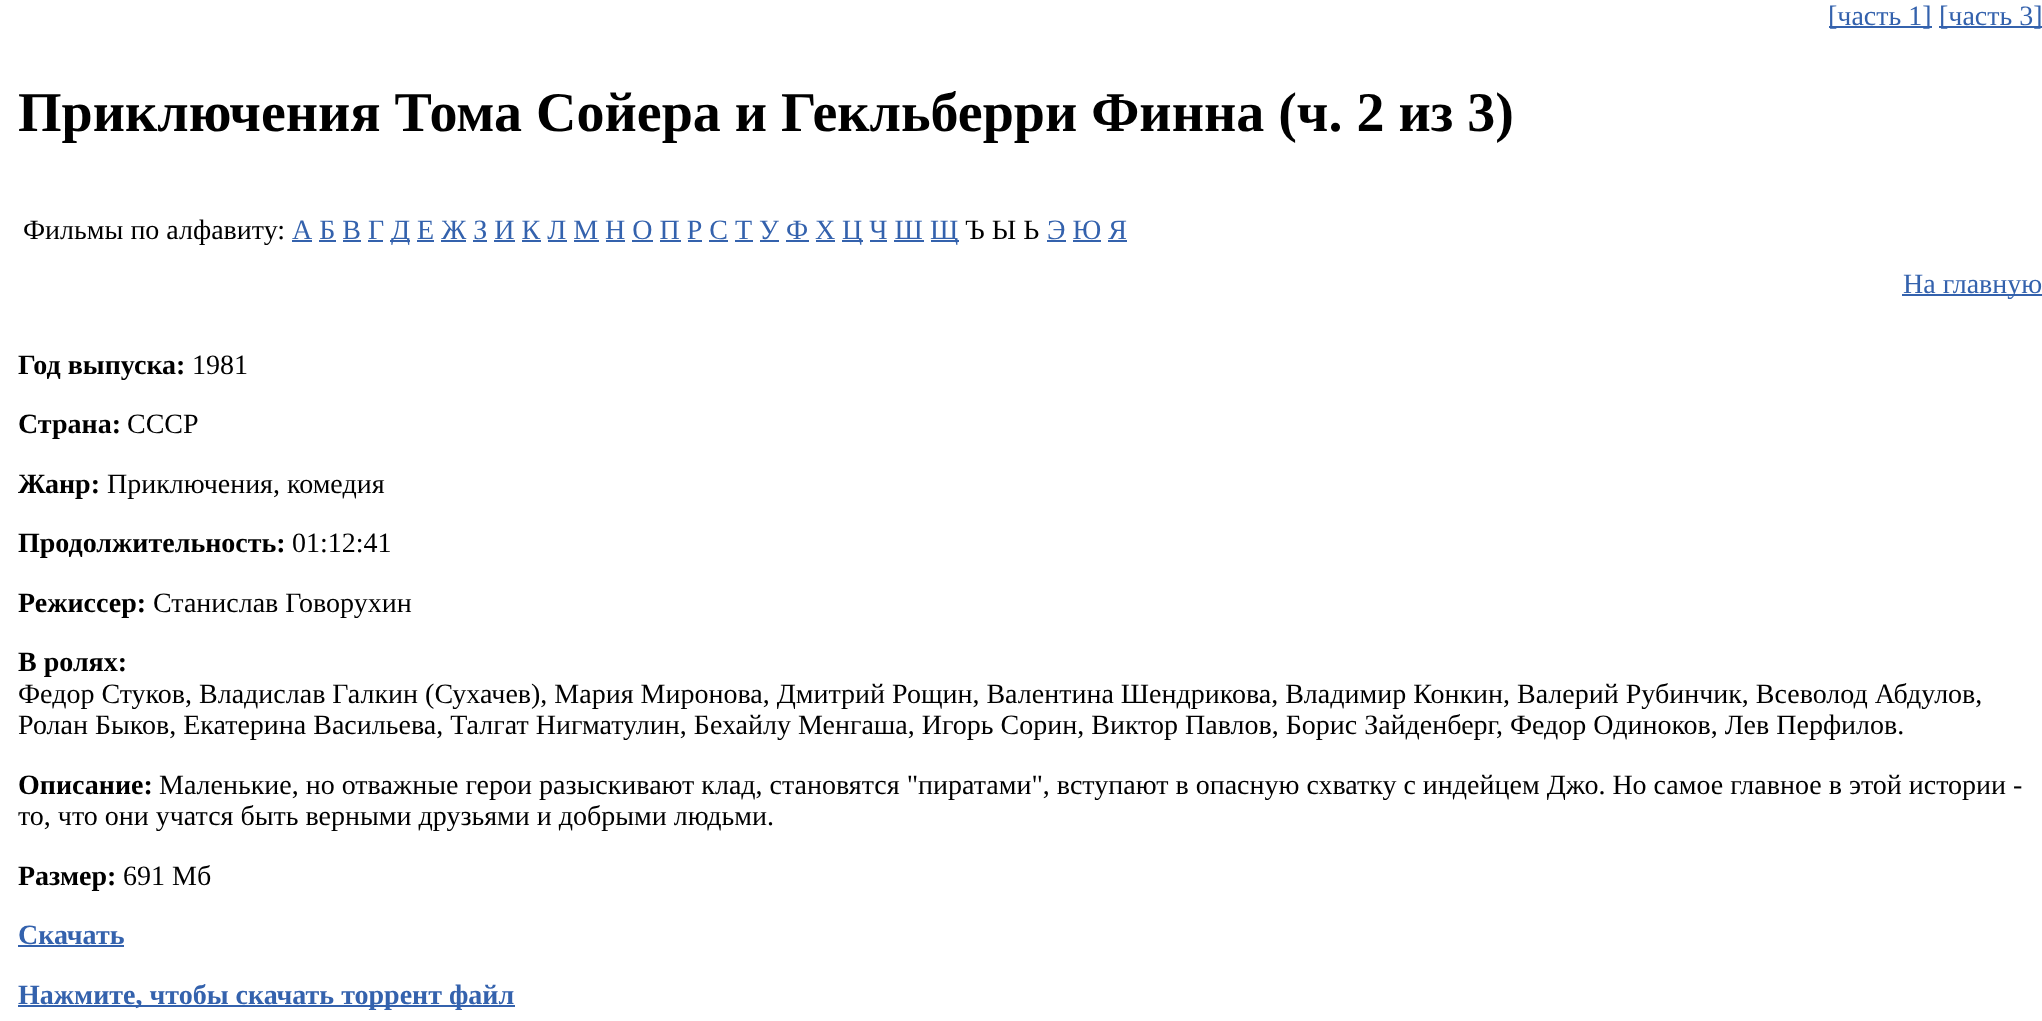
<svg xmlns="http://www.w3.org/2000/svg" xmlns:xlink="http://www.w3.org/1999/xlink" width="2042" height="1021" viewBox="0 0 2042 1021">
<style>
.cls-1{font:28px Liberation Serif;fill:#3462ad}
.cls-2{font:bold 56px Liberation Serif;fill:#000000}
.cls-3{font:28px Liberation Serif;fill:#000000}
.cls-4{font:bold 28px Liberation Serif;fill:#000000}
.cls-5{font:bold 28px Liberation Serif;fill:#3462ad}
</style>
<rect width="100%" height="100%" fill="#ffffff"/>
<rect fill="#3462ad" x="1829" y="26" width="103" height="2"/>
<rect fill="#3462ad" x="1939" y="26" width="103" height="2"/>
<rect fill="#3462ad" x="292" y="240" width="20" height="2"/>
<rect fill="#3462ad" x="390" y="240" width="20" height="2"/>
<rect fill="#3462ad" x="842" y="240" width="21" height="2"/>
<rect fill="#3462ad" x="931" y="240" width="28" height="2"/>
<rect fill="#3462ad" x="1047" y="240" width="19" height="2"/>
<rect fill="#3462ad" x="319" y="240" width="17" height="2"/>
<rect fill="#3462ad" x="343" y="240" width="18" height="2"/>
<rect fill="#3462ad" x="368" y="240" width="15" height="2"/>
<rect fill="#3462ad" x="417" y="240" width="17" height="2"/>
<rect fill="#3462ad" x="441" y="240" width="25" height="2"/>
<rect fill="#3462ad" x="473" y="240" width="14" height="2"/>
<rect fill="#3462ad" x="494" y="240" width="21" height="2"/>
<rect fill="#3462ad" x="522" y="240" width="19" height="2"/>
<rect fill="#3462ad" x="548" y="240" width="19" height="2"/>
<rect fill="#3462ad" x="574" y="240" width="25" height="2"/>
<rect fill="#3462ad" x="606" y="240" width="19" height="2"/>
<rect fill="#3462ad" x="632" y="240" width="21" height="2"/>
<rect fill="#3462ad" x="660" y="240" width="21" height="2"/>
<rect fill="#3462ad" x="688" y="240" width="14" height="2"/>
<rect fill="#3462ad" x="709" y="240" width="19" height="2"/>
<rect fill="#3462ad" x="735" y="240" width="18" height="2"/>
<rect fill="#3462ad" x="760" y="240" width="19" height="2"/>
<rect fill="#3462ad" x="786" y="240" width="23" height="2"/>
<rect fill="#3462ad" x="816" y="240" width="19" height="2"/>
<rect fill="#3462ad" x="870" y="240" width="17" height="2"/>
<rect fill="#3462ad" x="894" y="240" width="30" height="2"/>
<rect fill="#3462ad" x="1073" y="240" width="28" height="2"/>
<rect fill="#3462ad" x="1108" y="240" width="19" height="2"/>
<rect fill="#3462ad" x="1902" y="294" width="140" height="2"/>
<rect fill="#3462ad" x="18" y="945" width="106" height="2"/>
<rect fill="#3462ad" x="18" y="1005" width="497" height="2"/>
<text class="cls-1" x="1828" y="25">[часть 1]</text>
<text class="cls-1" x="1939" y="25">[часть 3]</text>
<text class="cls-2" x="18" y="131">Приключения Тома Сойера и Гекльберри Финна (ч. 2 из 3)</text>
<text class="cls-3" x="23" y="239">Фильмы по алфавиту:</text>
<text class="cls-1" x="292" y="239">А Б В Г</text>
<text class="cls-1" x="391" y="239">Д Е Ж З И К Л М Н О П Р С Т У Ф Х</text>
<text class="cls-1" x="842" y="239">Ц Ч Ш</text>
<text class="cls-1" x="930" y="239">Щ</text>
<text class="cls-3" x="965" y="239">Ъ Ы Ь</text>
<text class="cls-1" x="1047" y="239">Э Ю Я</text>
<text class="cls-1" x="1903" y="293">На главную</text>
<text class="cls-4" x="18" y="374">Год выпуска:</text>
<text class="cls-3" x="192" y="374">1981</text>
<text class="cls-4" x="18" y="433">Страна:</text>
<text class="cls-3" x="127" y="433">СССР</text>
<text class="cls-4" x="18" y="493">Жанр:</text>
<text class="cls-3" x="107" y="493">Приключения, комедия</text>
<text class="cls-4" x="18" y="552">Продолжительность:</text>
<text class="cls-3" x="292" y="552">01:12:41</text>
<text class="cls-4" x="18" y="612">Режиссер:</text>
<text class="cls-3" x="153" y="612">Станислав Говорухин</text>
<text class="cls-4" x="18" y="671">В ролях:</text>
<text class="cls-3"><tspan x="18" y="703">Федор Стуков, Владислав Галкин (Сухачев), Мария Миронова, Дмитрий Рощин, Валентина Шендрикова, Владимир Конкин, Валерий Рубинчик, Всеволод Абдулов,</tspan><tspan x="18" y="734">Ролан Быков, Екатерина Васильева, Талгат Нигматулин, Бехайлу Менгаша, Игорь Сорин, Виктор Павлов, Борис Зайденберг, Федор Одиноков, Лев Перфилов.</tspan></text>
<text class="cls-4" x="18" y="794">Описание:</text>
<text class="cls-3" x="159" y="794">Маленькие, но отважные герои разыскивают клад, становятся "пиратами", вступают в опасную схватку с индейцем Джо. Но самое главное в этой истории -</text>
<text class="cls-3" x="18" y="825">то, что они учатся быть верными друзьями и добрыми людьми.</text>
<text class="cls-4" x="18" y="885">Размер:</text>
<text class="cls-3" x="123" y="885">691 Мб</text>
<text class="cls-5" x="18" y="944">Скачать</text>
<text class="cls-5" x="18" y="1004">Нажмите, чтобы скачать торрент файл</text>
</svg>
